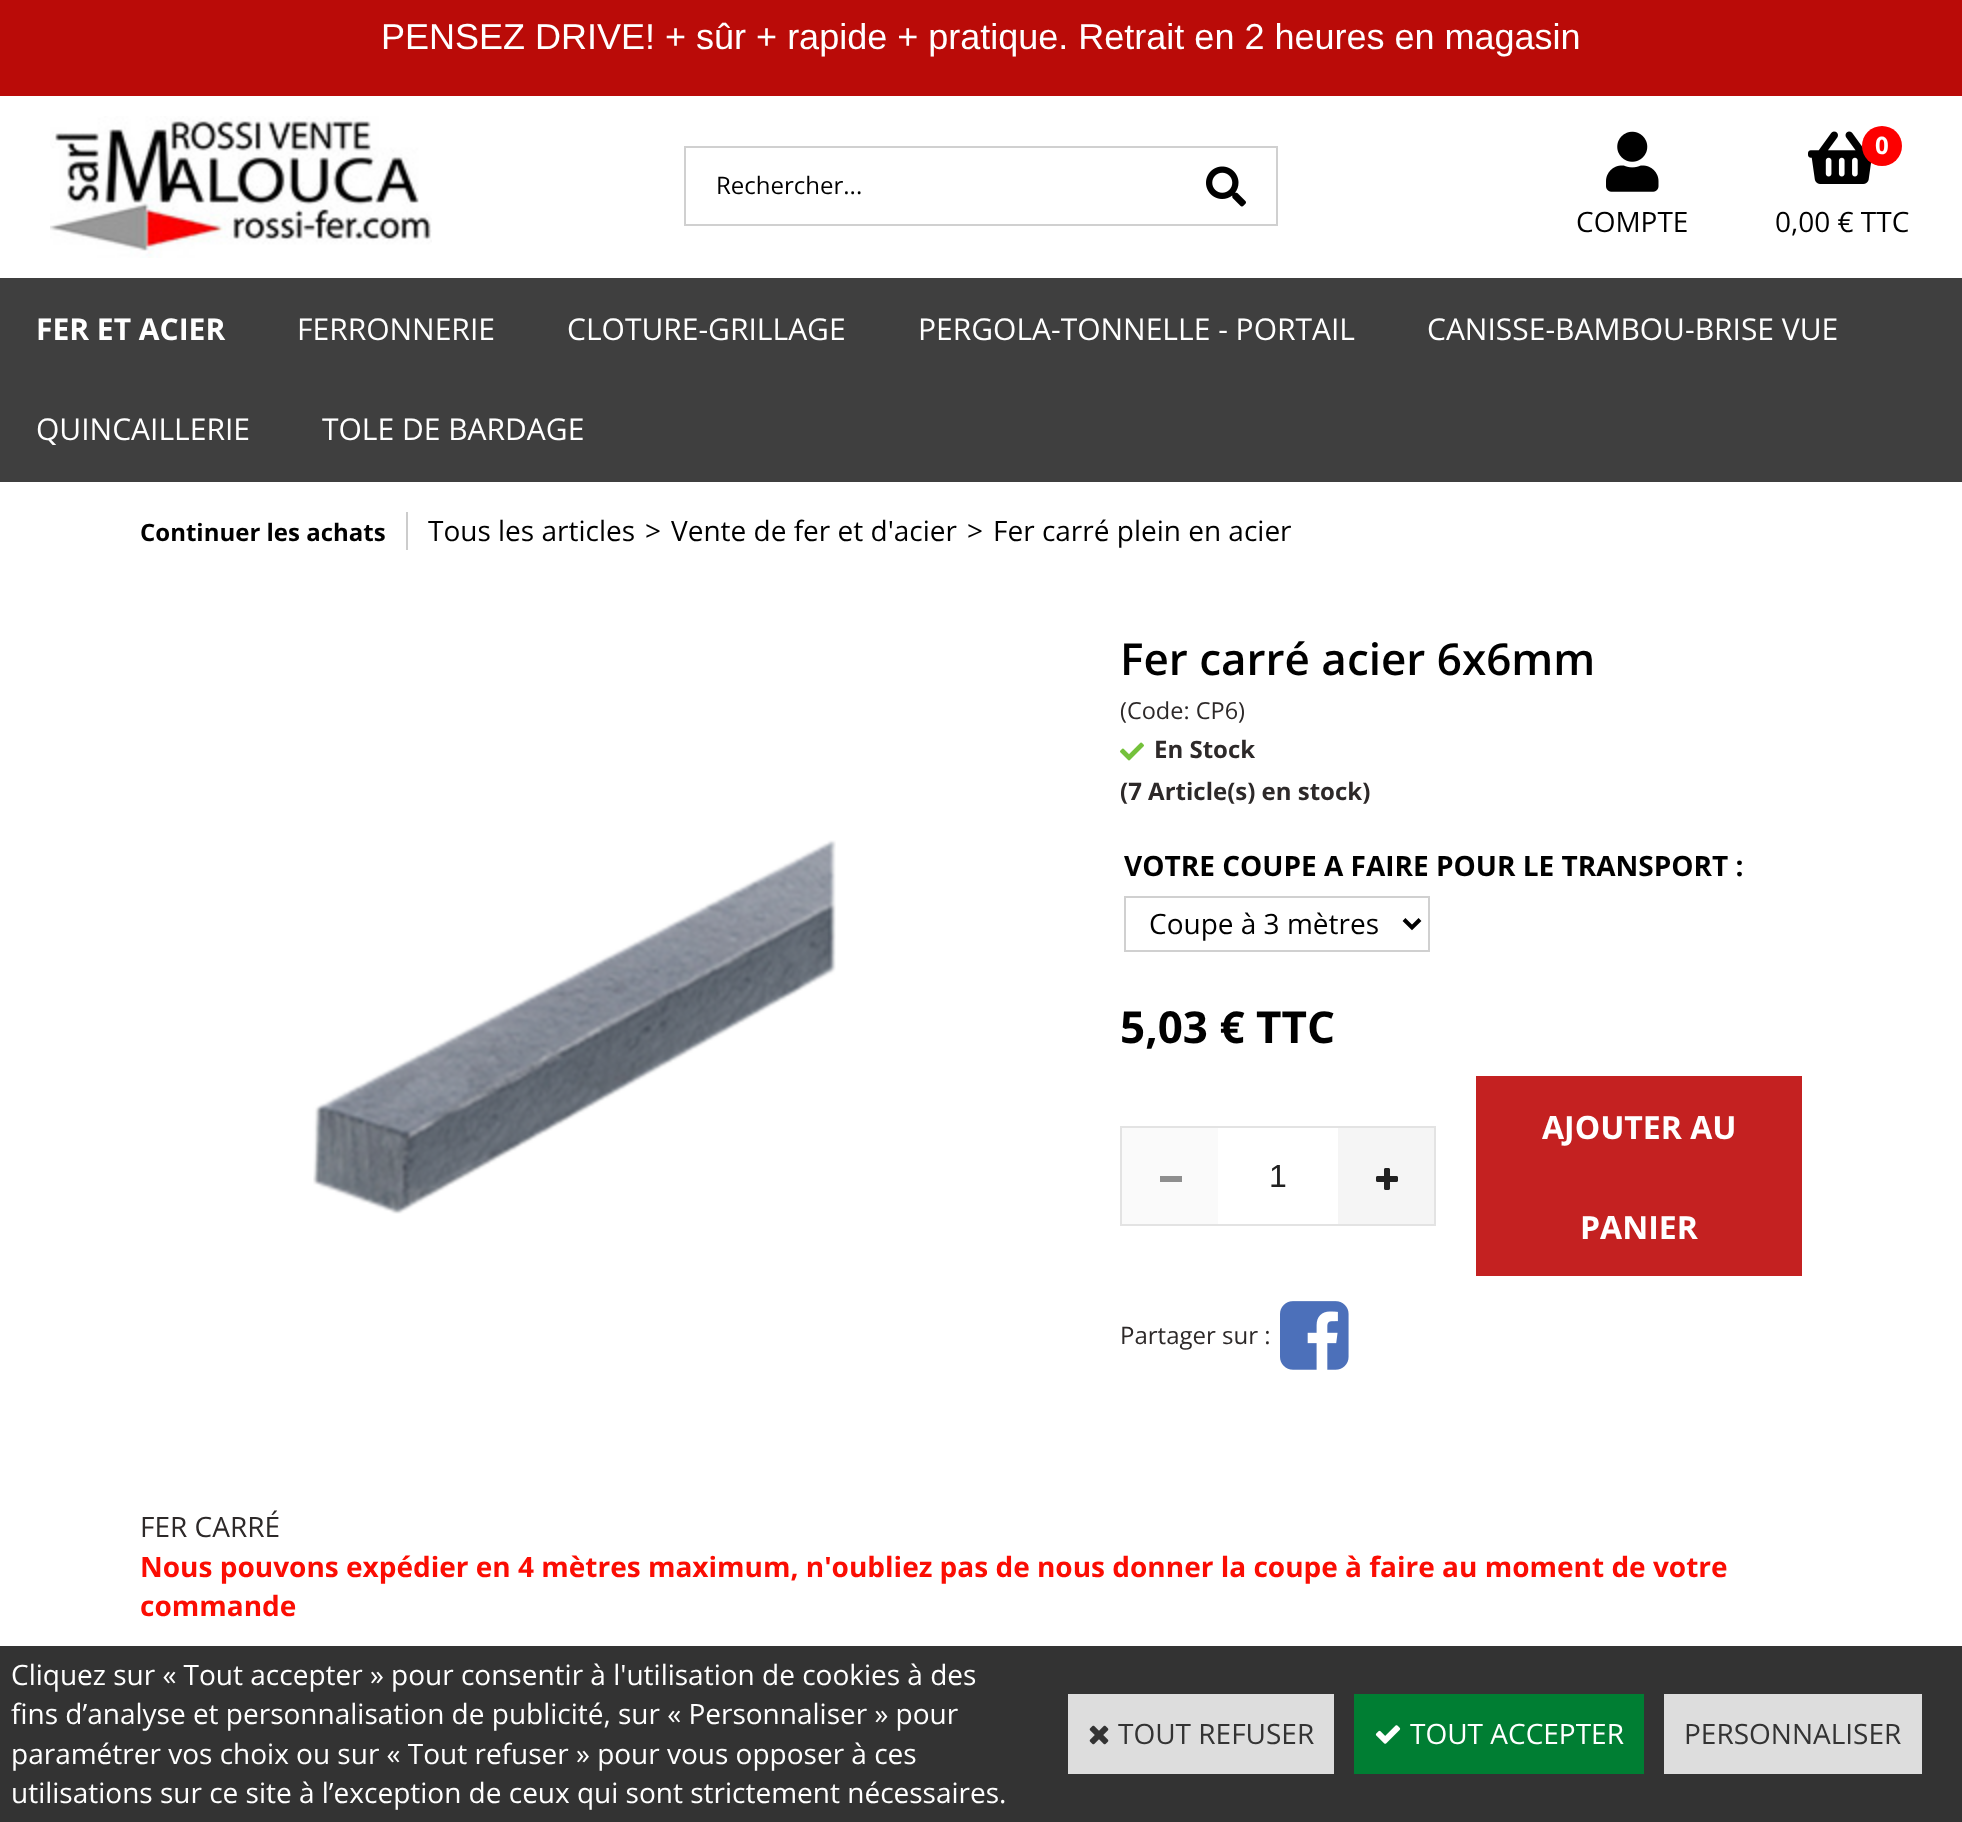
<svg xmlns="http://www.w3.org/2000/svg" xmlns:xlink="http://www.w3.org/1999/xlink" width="1962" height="1822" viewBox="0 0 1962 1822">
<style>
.cls-1{font:36px Liberation Sans;fill:#ffffff}
.cls-2{font:24px Open Sans;fill:#000000}
.cls-3{font:28px Open Sans;fill:#000000}
.cls-4{font:bold 24px Open Sans;fill:#ffffff}
.cls-5{font:bold 30px Open Sans;fill:#ffffff}
.cls-6{font:30px Open Sans;fill:#ffffff}
.cls-7{font:bold 24px Open Sans;fill:#000000}
.cls-8{font:600 44px Open Sans;fill:#000000}
.cls-9{font:23.5px Open Sans;fill:#2d2929}
.cls-10{font:bold 24px Open Sans;fill:#2d2929}
.cls-11{font:bold 28px Open Sans;fill:#000000}
.cls-12{font:bold 44px Open Sans;fill:#000000}
.cls-13{font:32px Liberation Sans;fill:#212121}
.cls-14{font:bold 32px Open Sans;fill:#ffffff}
.cls-15{font:24px Open Sans;fill:#2d2929}
.cls-16{font:28px Open Sans;fill:#2d2929}
.cls-17{font:bold 28px Open Sans;fill:#fb0d03}
.cls-18{font:28px Open Sans;fill:#ffffff}
.cls-19{font:28px Open Sans;fill:#333333}
</style>
<rect width="100%" height="100%" fill="#ffffff"/>
<rect fill="#ba0b08" x="0" y="0" width="1962" height="96"/>
<image xlink:href="image0.png" x="50" y="116" width="382" height="142"/>
<rect fill="#d0d0d0" x="684" y="146" width="594" height="2"/>
<rect fill="#d0d0d0" x="684" y="224" width="492" height="2"/>
<rect fill="#d0d0d0" x="684" y="146" width="2" height="80"/>
<rect fill="#d0d0d0" x="1276" y="146" width="2" height="80"/>
<rect fill="#d0d0d0" x="1176" y="224" width="102" height="2"/>
<image xlink:href="image1.png" x="1206" y="166" width="40" height="41"/>
<image xlink:href="image2.png" x="1606" y="131" width="53" height="61"/>
<image xlink:href="image3.png" x="1808" y="131" width="64" height="53"/>
<circle fill="#fd0000" cx="1882" cy="146" r="20"/>
<rect fill="#3f3f3f" x="0" y="278" width="1962" height="204"/>
<rect fill="#cccccc" x="406" y="512" width="2" height="38"/>
<image xlink:href="image4.png" x="313" y="840" width="523" height="374"/>
<image xlink:href="image5.png" x="1120" y="742" width="24" height="19"/>
<rect fill="none" stroke="#d0d0d0" stroke-width="2" x="1125" y="897" width="304" height="54"/>
<path fill="none" stroke="#000000" stroke-width="4" d="M1404 919.5L1412 927.5L1420 919.5"/>
<rect fill="none" stroke="#e3e3e3" stroke-width="2" x="1121" y="1127" width="314" height="98"/>
<rect fill="#fafafa" x="1122" y="1128" width="96" height="96"/>
<rect fill="#8e8e8e" x="1160" y="1176" width="22" height="6"/>
<rect fill="#f5f5f5" x="1338" y="1128" width="96" height="96"/>
<image xlink:href="image6.png" x="1376" y="1168" width="22" height="22"/>
<rect fill="#c42121" x="1476" y="1076" width="326" height="200"/>
<image xlink:href="image7.png" x="1280" y="1301" width="69" height="69"/>
<rect fill="#333333" x="0" y="1646" width="1962" height="176"/>
<rect fill="#dddddd" x="1068" y="1694" width="266" height="80"/>
<image xlink:href="image8.png" x="1089" y="1725" width="20" height="20"/>
<rect fill="#007e33" x="1354" y="1694" width="290" height="80"/>
<image xlink:href="image9.png" x="1375" y="1725" width="26" height="19"/>
<rect fill="#dddddd" x="1664" y="1694" width="258" height="80"/>
<text class="cls-1" x="381" y="49">PENSEZ DRIVE! + sûr + rapide + pratique. Retrait en 2 heures en magasin</text>
<text class="cls-2" x="716" y="194">Rechercher...</text>
<text class="cls-3" x="1576" y="232">COMPTE</text>
<text class="cls-4" x="1875" y="154">0</text>
<text class="cls-3" x="1775" y="232">0,00 € TTC</text>
<text class="cls-5" x="36" y="340">FER ET ACIER</text>
<text class="cls-6" x="297" y="340">FERRONNERIE</text>
<text class="cls-6" x="567" y="340">CLOTURE-GRILLAGE</text>
<text class="cls-6" x="918" y="340">PERGOLA-TONNELLE - PORTAIL</text>
<text class="cls-6" x="1427" y="340">CANISSE-BAMBOU-BRISE VUE</text>
<text class="cls-6" x="36" y="440">QUINCAILLERIE</text>
<text class="cls-6" x="322" y="440">TOLE DE BARDAGE</text>
<text class="cls-7" x="140" y="541">Continuer les achats</text>
<text class="cls-3" x="428" y="541">Tous les articles</text>
<text class="cls-3" x="645" y="541">&gt;</text>
<text class="cls-3" x="671" y="541">Vente de fer et d'acier</text>
<text class="cls-3" x="967" y="541">&gt;</text>
<text class="cls-3" x="993" y="541">Fer carré plein en acier</text>
<text class="cls-8" x="1120" y="675">Fer carré acier 6x6mm</text>
<text class="cls-9" x="1120" y="719">(Code: CP6)</text>
<text class="cls-10" x="1154" y="758">En Stock</text>
<text class="cls-10" x="1120" y="800">(7 Article(s) en stock)</text>
<text class="cls-11" x="1124" y="876">VOTRE COUPE A FAIRE POUR LE TRANSPORT :</text>
<text class="cls-3" x="1149" y="934">Coupe à 3 mètres</text>
<text class="cls-12" x="1120" y="1043">5,03 € TTC</text>
<text class="cls-13" x="1269" y="1187">1</text>
<text class="cls-14" x="1542" y="1139">AJOUTER AU</text>
<text class="cls-14" x="1580" y="1239">PANIER</text>
<text class="cls-15" x="1120" y="1344">Partager sur :</text>
<text class="cls-16" x="140" y="1537">FER CARRÉ</text>
<text class="cls-17"><tspan x="140" y="1577">Nous pouvons expédier en 4 mètres maximum, n'oubliez pas de nous donner la coupe à faire au moment de votre</tspan><tspan x="140" y="1616">commande</tspan></text>
<text class="cls-18"><tspan x="11" y="1685">Cliquez sur « Tout accepter » pour consentir à l'utilisation de cookies à des</tspan><tspan x="11" y="1724">fins d’analyse et personnalisation de publicité, sur « Personnaliser » pour</tspan><tspan x="11" y="1764">paramétrer vos choix ou sur « Tout refuser » pour vous opposer à ces</tspan><tspan x="11" y="1803">utilisations sur ce site à l’exception de ceux qui sont strictement nécessaires.</tspan></text>
<text class="cls-19" x="1118" y="1744">TOUT REFUSER</text>
<text class="cls-18" x="1410" y="1744">TOUT ACCEPTER</text>
<text class="cls-19" x="1684" y="1744">PERSONNALISER</text>
</svg>
